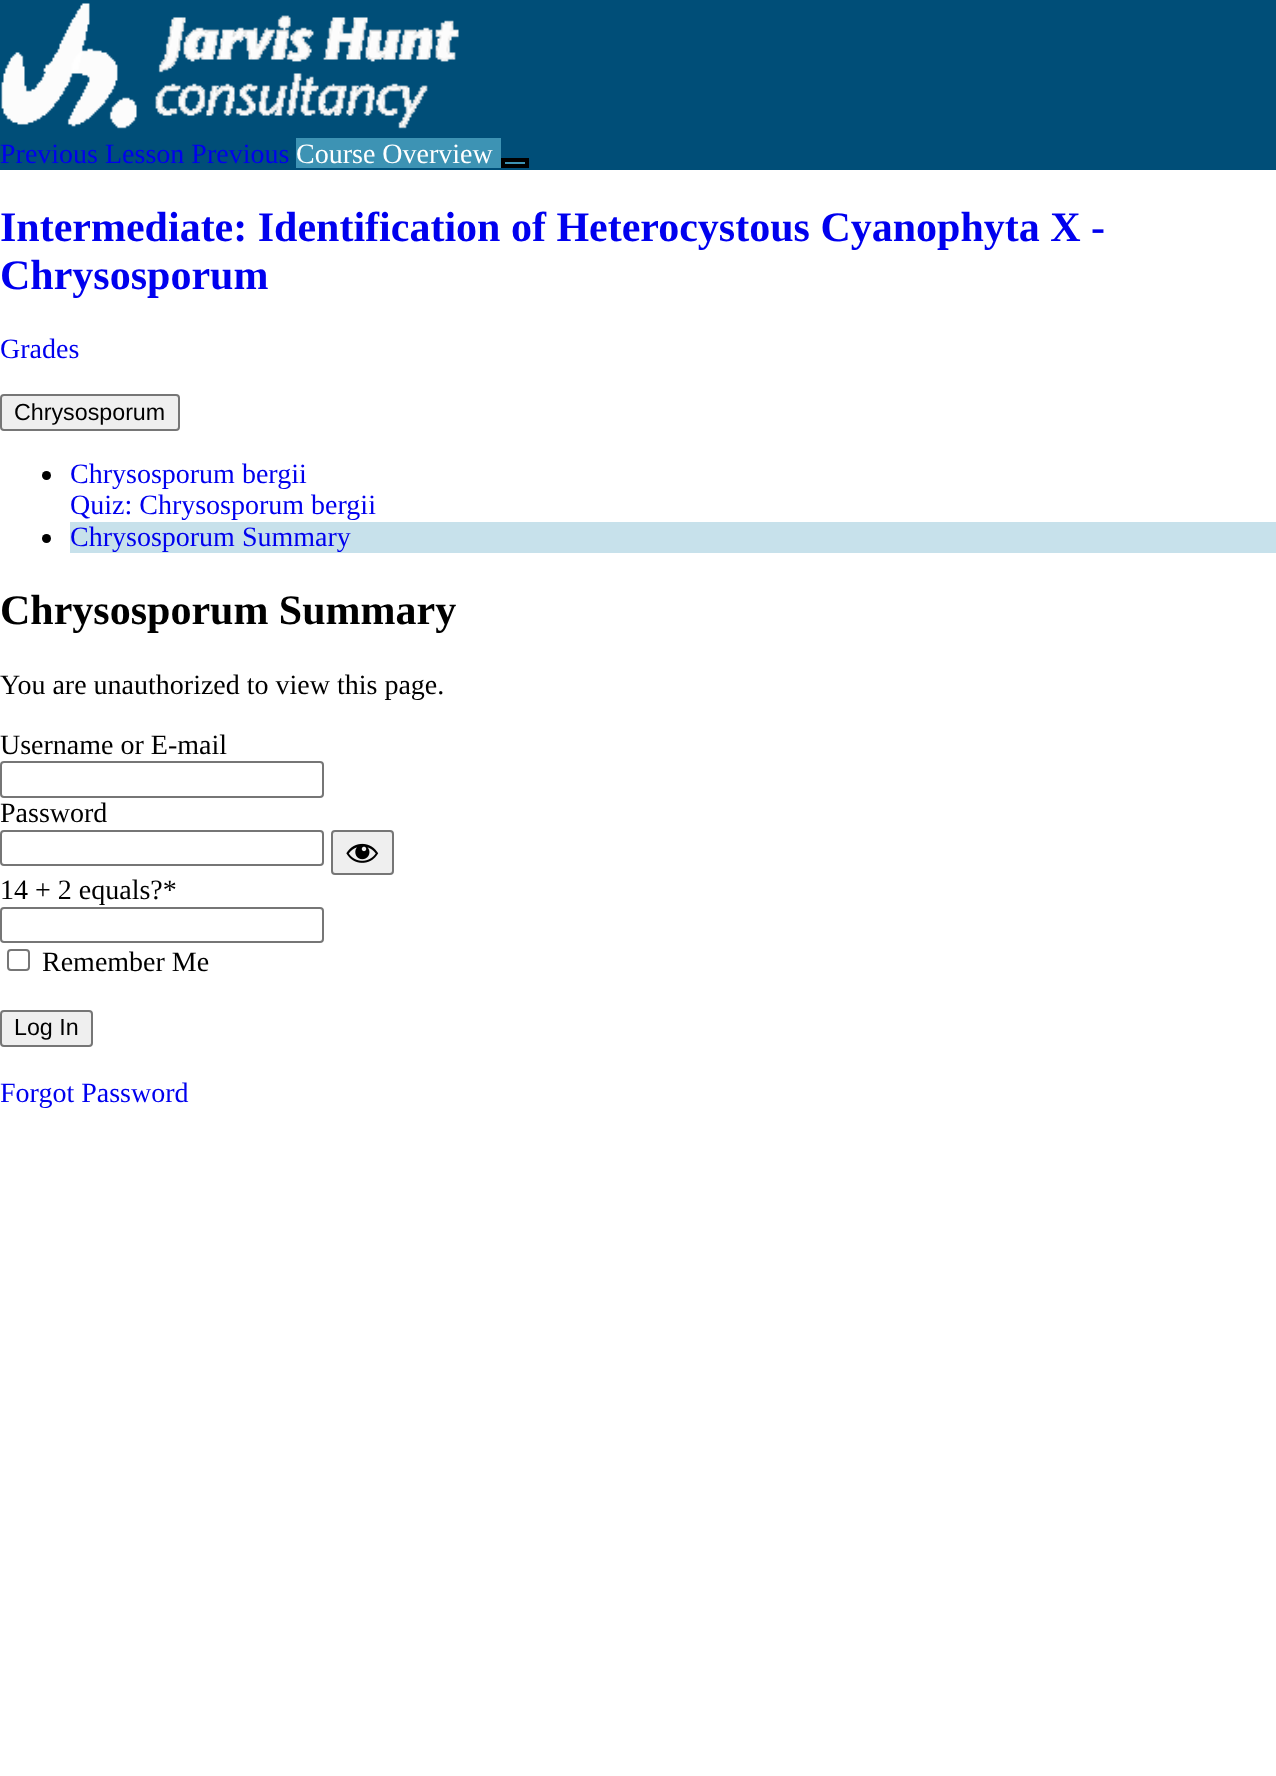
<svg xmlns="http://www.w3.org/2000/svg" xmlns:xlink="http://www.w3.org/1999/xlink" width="1276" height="1776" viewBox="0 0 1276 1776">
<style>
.cls-1{font:28px Liberation Serif;fill:#0000ee}
.cls-2{font:28px Liberation Serif;fill:#ffffff}
.cls-3{font:bold 42px Liberation Serif;fill:#0000ee}
.cls-4{font:23.25px Liberation Sans;fill:#000000}
.cls-5{font:bold 42px Liberation Serif;fill:#000000}
.cls-6{font:28px Liberation Serif;fill:#000000}
</style>
<rect width="100%" height="100%" fill="#ffffff"/>
<rect fill="#004e78" x="0" y="0" width="1276" height="170"/>
<image xlink:href="image0.png" x="1" y="3" width="458" height="126"/>
<rect fill="#3d93b4" x="296" y="138" width="205" height="30"/>
<rect fill="#3d93b4" stroke="#000000" stroke-width="4" x="503" y="160" width="24" height="6"/>
<rect fill="#efefef" stroke="#767676" stroke-width="2" x="1" y="395" width="178" height="35" rx="3"/>
<circle fill="#000000" cx="46.5" cy="475.5" r="4.5"/>
<rect fill="#c7e1eb" x="70" y="522" width="1206" height="31"/>
<circle fill="#000000" cx="46.5" cy="538.5" r="4.5"/>
<rect fill="none" stroke="#767676" stroke-width="2" x="1" y="762" width="322" height="35" rx="3"/>
<rect fill="none" stroke="#767676" stroke-width="2" x="1" y="831" width="322" height="34" rx="3"/>
<rect fill="#efefef" stroke="#767676" stroke-width="2" x="332" y="831" width="61" height="43" rx="3"/>
<image xlink:href="image1.png" x="346" y="843" width="33" height="20"/>
<rect fill="none" stroke="#767676" stroke-width="2" x="1" y="908" width="322" height="34" rx="3"/>
<rect fill="none" stroke="#767676" stroke-width="2" x="8" y="950" width="21" height="20" rx="3"/>
<rect fill="#efefef" stroke="#767676" stroke-width="2" x="1" y="1011" width="91" height="35" rx="3"/>
<text class="cls-1" x="0" y="163">Previous Lesson Previous</text>
<text class="cls-2" x="296" y="163">Course Overview</text>
<text class="cls-3"><tspan x="0" y="241">Intermediate: Identification of Heterocystous Cyanophyta X -</tspan><tspan x="0" y="289">Chrysosporum</tspan></text>
<text class="cls-1" x="0" y="358">Grades</text>
<text class="cls-4" x="14" y="420">Chrysosporum</text>
<text class="cls-1"><tspan x="70" y="483">Chrysosporum bergii</tspan><tspan x="70" y="514">Quiz: Chrysosporum bergii</tspan><tspan x="70" y="546">Chrysosporum Summary</tspan></text>
<text class="cls-5" x="0" y="624">Chrysosporum Summary</text>
<text class="cls-6" x="0" y="694">You are unauthorized to view this page.</text>
<text class="cls-6" x="0" y="754">Username or E-mail</text>
<text class="cls-6" x="0" y="822">Password</text>
<text class="cls-6" x="0" y="899">14 + 2 equals?*</text>
<text class="cls-6" x="42" y="971">Remember Me</text>
<text class="cls-4" x="14" y="1035">Log In</text>
<text class="cls-1" x="0" y="1102">Forgot Password</text>
</svg>
